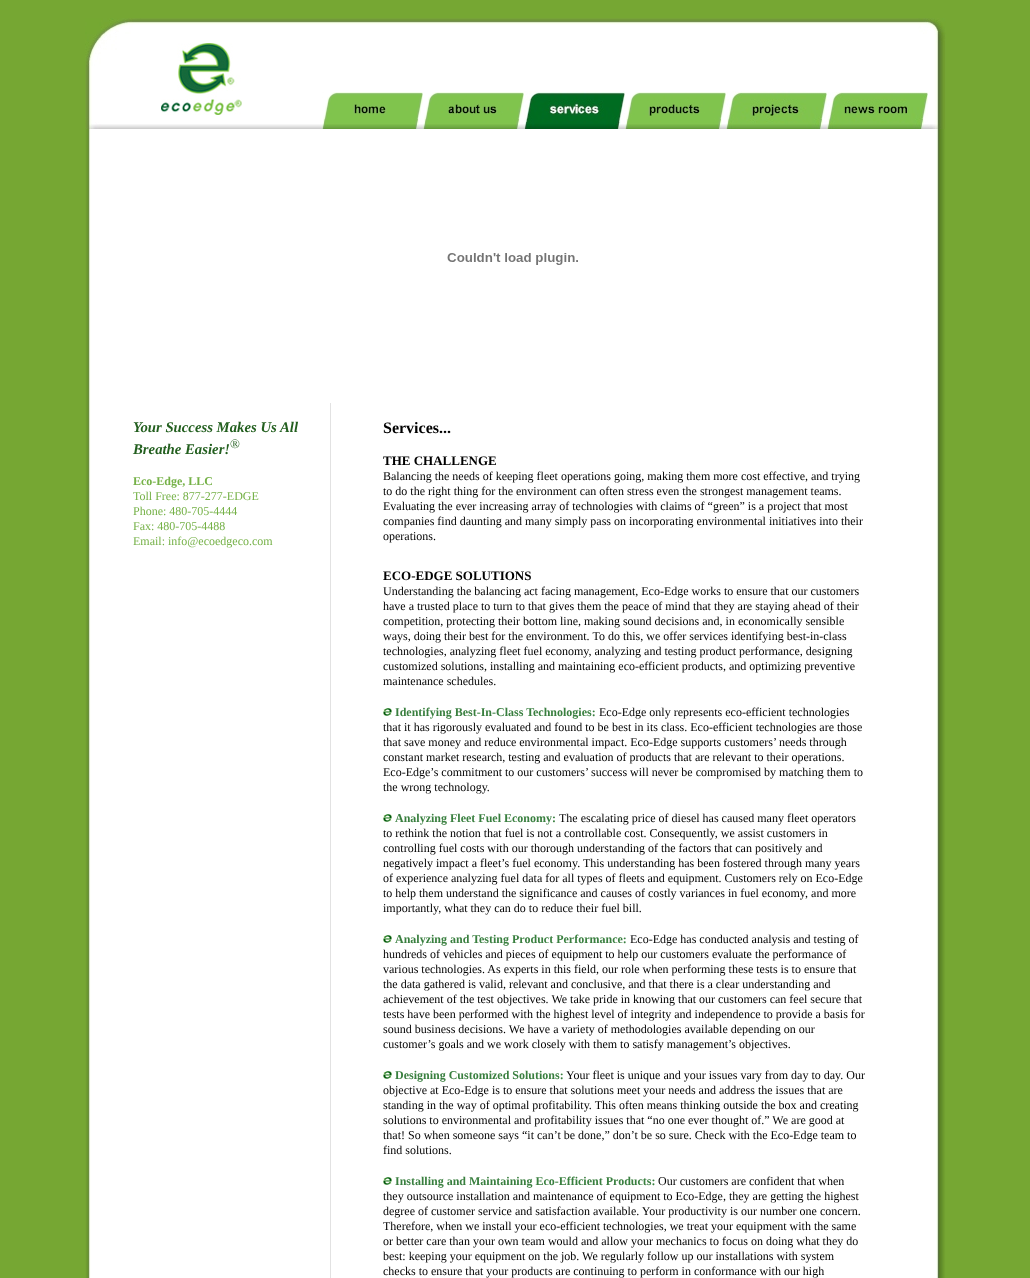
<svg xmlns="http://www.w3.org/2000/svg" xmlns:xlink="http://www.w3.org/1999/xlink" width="1030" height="1278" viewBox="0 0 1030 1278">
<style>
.cls-1{font:italic bold 14.75px Liberation Serif;fill:#235f1f}
.cls-2{font:13px Liberation Serif;fill:#235f1f}
.cls-3{font:bold 12px Liberation Serif;fill:#75b147}
.cls-4{font:12px Liberation Serif;fill:#75b147}
.cls-5{font:bold 16px Liberation Serif;fill:#000000}
.cls-6{font:bold 13px Liberation Serif;fill:#000000}
.cls-7{font:12px Liberation Serif;fill:#000000}
.cls-8{font:bold 12px Liberation Serif;fill:#397f3f}
</style>
<rect width="100%" height="100%" fill="#76a733"/>
<image xlink:href="image0.png" x="85" y="18" width="861" height="111"/>
<image xlink:href="image1.png" x="161" y="43" width="81" height="72"/>
<image xlink:href="image2.png" x="322" y="92" width="101" height="37"/>
<image xlink:href="image3.png" x="423" y="92" width="101" height="37"/>
<image xlink:href="image4.png" x="524" y="91" width="101" height="38"/>
<image xlink:href="image5.png" x="625" y="92" width="101" height="37"/>
<image xlink:href="image6.png" x="726" y="91" width="101" height="38"/>
<image xlink:href="image7.png" x="827" y="92" width="101" height="37"/>
<image xlink:href="image8.png" x="85" y="129" width="861" height="1149"/>
<image xlink:href="image9.png" x="447" y="253" width="131" height="12"/>
<rect fill="#e2e2e2" x="330" y="403" width="1" height="875"/>
<image xlink:href="image10.png" x="383" y="708" width="9" height="8"/>
<image xlink:href="image10.png" x="383" y="814" width="9" height="8"/>
<image xlink:href="image10.png" x="383" y="935" width="9" height="8"/>
<image xlink:href="image10.png" x="383" y="1071" width="9" height="8"/>
<image xlink:href="image10.png" x="383" y="1177" width="9" height="8"/>
<text class="cls-1"><tspan x="133" y="432">Your Success Makes Us All</tspan><tspan x="133" y="454">Breathe Easier!</tspan></text>
<text class="cls-2" x="230" y="448">®</text>
<text class="cls-3" x="133" y="485">Eco-Edge, LLC</text>
<text class="cls-4"><tspan x="133" y="500">Toll Free: 877-277-EDGE</tspan><tspan x="133" y="515">Phone: 480-705-4444</tspan><tspan x="133" y="530">Fax: 480-705-4488</tspan><tspan x="133" y="545">Email: info@ecoedgeco.com</tspan></text>
<text class="cls-5" x="383" y="433">Services...</text>
<text class="cls-6" x="383" y="465">THE CHALLENGE</text>
<text class="cls-7"><tspan x="383" y="480">Balancing the needs of keeping fleet operations going, making them more cost effective, and trying</tspan><tspan x="383" y="495">to do the right thing for the environment can often stress even the strongest management teams.</tspan><tspan x="383" y="510">Evaluating the ever increasing array of technologies with claims of “green” is a project that most</tspan><tspan x="383" y="525">companies find daunting and many simply pass on incorporating environmental initiatives into their</tspan><tspan x="383" y="540">operations.</tspan></text>
<text class="cls-6" x="383" y="580">ECO-EDGE SOLUTIONS</text>
<text class="cls-7"><tspan x="383" y="595">Understanding the balancing act facing management, Eco-Edge works to ensure that our customers</tspan><tspan x="383" y="610">have a trusted place to turn to that gives them the peace of mind that they are staying ahead of their</tspan><tspan x="383" y="625">competition, protecting their bottom line, making sound decisions and, in economically sensible</tspan><tspan x="383" y="640">ways, doing their best for the environment. To do this, we offer services identifying best-in-class</tspan><tspan x="383" y="655">technologies, analyzing fleet fuel economy, analyzing and testing product performance, designing</tspan><tspan x="383" y="670">customized solutions, installing and maintaining eco-efficient products, and optimizing preventive</tspan><tspan x="383" y="685">maintenance schedules.</tspan></text>
<text class="cls-8" x="395" y="716">Identifying Best-In-Class Technologies:</text>
<text class="cls-7" x="599" y="716">Eco-Edge only represents eco-efficient technologies</text>
<text class="cls-7"><tspan x="383" y="731">that it has rigorously evaluated and found to be best in its class. Eco-efficient technologies are those</tspan><tspan x="383" y="746">that save money and reduce environmental impact. Eco-Edge supports customers’ needs through</tspan><tspan x="383" y="761">constant market research, testing and evaluation of products that are relevant to their operations.</tspan><tspan x="383" y="776">Eco-Edge’s commitment to our customers’ success will never be compromised by matching them to</tspan><tspan x="383" y="791">the wrong technology.</tspan></text>
<text class="cls-8" x="395" y="822">Analyzing Fleet Fuel Economy:</text>
<text class="cls-7" x="559" y="822">The escalating price of diesel has caused many fleet operators</text>
<text class="cls-7"><tspan x="383" y="837">to rethink the notion that fuel is not a controllable cost. Consequently, we assist customers in</tspan><tspan x="383" y="852">controlling fuel costs with our thorough understanding of the factors that can positively and</tspan><tspan x="383" y="867">negatively impact a fleet’s fuel economy. This understanding has been fostered through many years</tspan><tspan x="383" y="882">of experience analyzing fuel data for all types of fleets and equipment. Customers rely on Eco-Edge</tspan><tspan x="383" y="897">to help them understand the significance and causes of costly variances in fuel economy, and more</tspan><tspan x="383" y="912">importantly, what they can do to reduce their fuel bill.</tspan></text>
<text class="cls-8" x="395" y="943">Analyzing and Testing Product Performance:</text>
<text class="cls-7" x="630" y="943">Eco-Edge has conducted analysis and testing of</text>
<text class="cls-7"><tspan x="383" y="958">hundreds of vehicles and pieces of equipment to help our customers evaluate the performance of</tspan><tspan x="383" y="973">various technologies. As experts in this field, our role when performing these tests is to ensure that</tspan><tspan x="383" y="988">the data gathered is valid, relevant and conclusive, and that there is a clear understanding and</tspan><tspan x="383" y="1003">achievement of the test objectives. We take pride in knowing that our customers can feel secure that</tspan><tspan x="383" y="1018">tests have been performed with the highest level of integrity and independence to provide a basis for</tspan><tspan x="383" y="1033">sound business decisions. We have a variety of methodologies available depending on our</tspan><tspan x="383" y="1048">customer’s goals and we work closely with them to satisfy management’s objectives.</tspan></text>
<text class="cls-8" x="395" y="1079">Designing Customized Solutions:</text>
<text class="cls-7" x="566" y="1079">Your fleet is unique and your issues vary from day to day. Our</text>
<text class="cls-7"><tspan x="383" y="1094">objective at Eco-Edge is to ensure that solutions meet your needs and address the issues that are</tspan><tspan x="383" y="1109">standing in the way of optimal profitability. This often means thinking outside the box and creating</tspan><tspan x="383" y="1124">solutions to environmental and profitability issues that “no one ever thought of.” We are good at</tspan><tspan x="383" y="1139">that! So when someone says “it can’t be done,” don’t be so sure. Check with the Eco-Edge team to</tspan><tspan x="383" y="1154">find solutions.</tspan></text>
<text class="cls-8" x="395" y="1185">Installing and Maintaining Eco-Efficient Products:</text>
<text class="cls-7" x="658" y="1185">Our customers are confident that when</text>
<text class="cls-7"><tspan x="383" y="1200">they outsource installation and maintenance of equipment to Eco-Edge, they are getting the highest</tspan><tspan x="383" y="1215">degree of customer service and satisfaction available. Your productivity is our number one concern.</tspan><tspan x="383" y="1230">Therefore, when we install your eco-efficient technologies, we treat your equipment with the same</tspan><tspan x="383" y="1245">or better care than your own team would and allow your mechanics to focus on doing what they do</tspan><tspan x="383" y="1260">best: keeping your equipment on the job. We regularly follow up our installations with system</tspan><tspan x="383" y="1275">checks to ensure that your products are continuing to perform in conformance with our high</tspan></text>
</svg>
